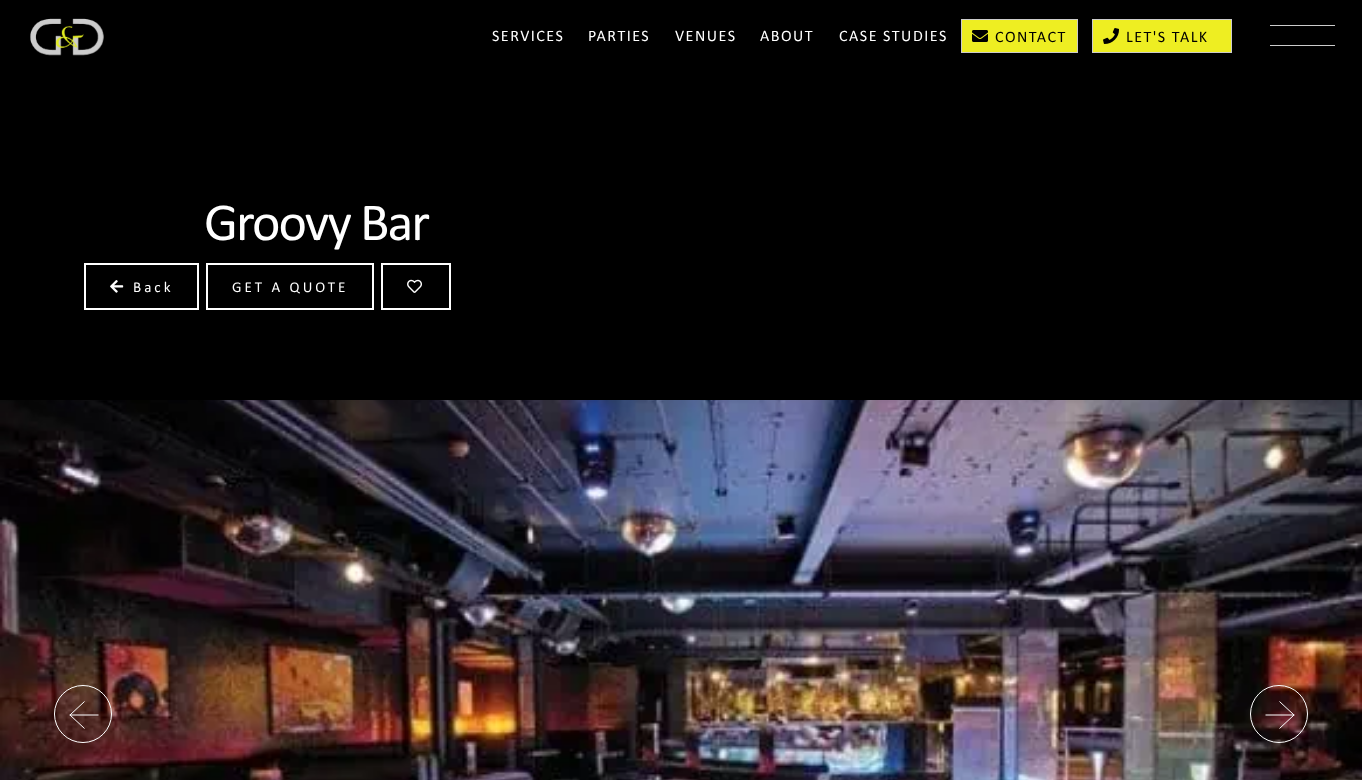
<svg xmlns="http://www.w3.org/2000/svg" xmlns:xlink="http://www.w3.org/1999/xlink" width="1362" height="780" viewBox="0 0 1362 780">
<style>
.cls-1{font:16px Calibri;letter-spacing:1.5px;fill:#ffffff}
.cls-2{font:16px Calibri;letter-spacing:1.5px;fill:#000000}
.cls-3{font:54px Calibri;letter-spacing:-2px;fill:#ffffff}
.cls-4{font:15px Calibri;letter-spacing:3px;fill:#ffffff}
</style>
<rect width="100%" height="100%" fill="#000000"/>
<image xlink:href="image0.png" x="30" y="18" width="74" height="38"/>
<rect fill="#eeee22" stroke="#cbcbcb" x="961.5" y="19.5" width="116" height="33"/>
<image xlink:href="image1.png" x="972" y="30" width="16" height="12"/>
<rect fill="#eeee22" stroke="#cbcbcb" x="1092.5" y="19.5" width="139" height="33"/>
<image xlink:href="image2.png" x="1103" y="28" width="16" height="16"/>
<rect fill="#cbcbcb" x="1270" y="25" width="65" height="1"/>
<rect fill="#cbcbcb" x="1270" y="45" width="65" height="1"/>
<rect fill="none" stroke="#ffffff" stroke-width="2" x="85" y="264" width="113" height="45"/>
<image xlink:href="image3.png" x="110" y="280" width="14" height="13"/>
<rect fill="none" stroke="#ffffff" stroke-width="2" x="207" y="264" width="166" height="45"/>
<rect fill="none" stroke="#ffffff" stroke-width="2" x="382" y="264" width="68" height="45"/>
<image xlink:href="image4.png" x="407" y="279" width="15" height="14"/>
<image xlink:href="image5.png" x="0" y="400" width="1362" height="380"/>
<path fill="none" stroke="#ffffff" d="M84.5 701.5L70 715L84.5 728.5M98.5 715H69.5"/>
<circle fill="none" stroke="#ffffff" cx="83" cy="714" r="28.5"/>
<path fill="none" stroke="#ffffff" d="M1279.5 701.5L1294 715L1279.5 728.5M1265.5 715H1294.5"/>
<circle fill="none" stroke="#ffffff" cx="1279" cy="714" r="28.5"/>
<text class="cls-1" x="492" y="41">SERVICES</text>
<text class="cls-1" x="588" y="41">PARTIES</text>
<text class="cls-1" x="675" y="41">VENUES</text>
<text class="cls-1" x="760" y="41">ABOUT</text>
<text class="cls-1" x="839" y="41">CASE STUDIES</text>
<text class="cls-2" x="995" y="42">CONTACT</text>
<text class="cls-2" x="1126" y="42">LET'S TALK</text>
<text class="cls-3" x="204" y="240">Groovy Bar</text>
<text class="cls-4" x="133" y="292">Back</text>
<text class="cls-4" x="232" y="292">GET A QUOTE</text>
</svg>
